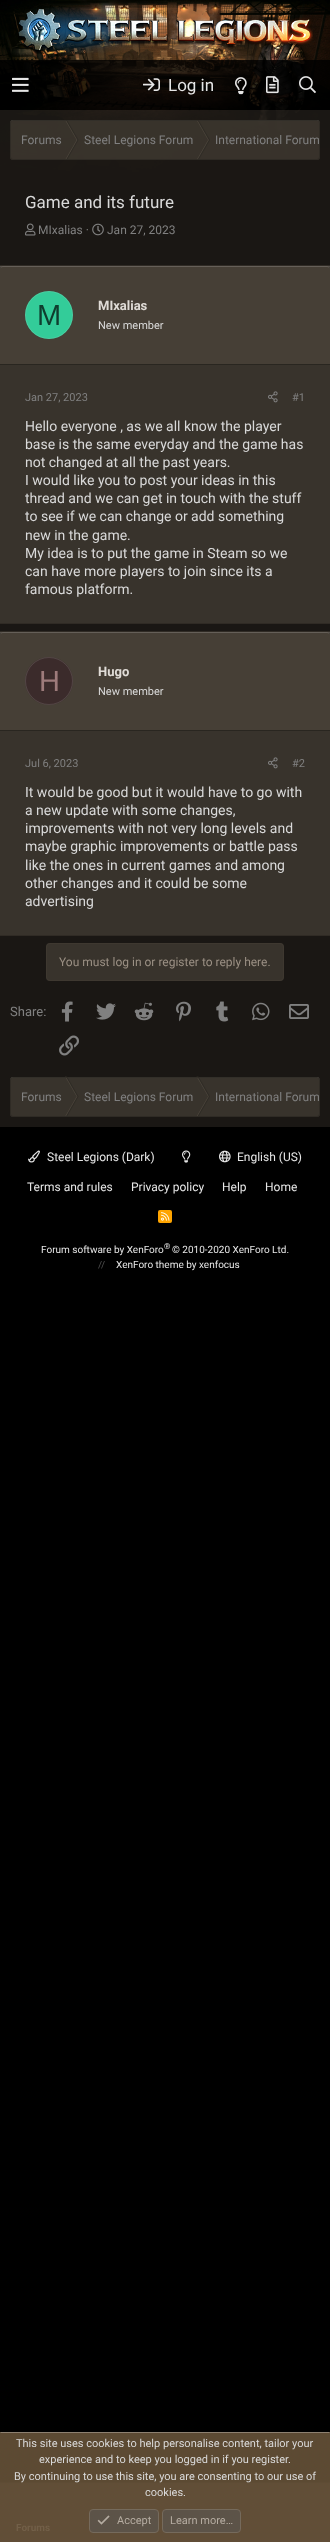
<svg xmlns="http://www.w3.org/2000/svg" xmlns:xlink="http://www.w3.org/1999/xlink" width="330" height="2542" viewBox="0 0 330 2542">
<style>
.cls-1{font:17px Roboto;fill:#e6e6e6}
.cls-2{font:12px Roboto;fill:#808080}
.cls-3{font:17px Roboto;fill:#d9d9d9}
.cls-4{font:29px Liberation Sans;fill:#0f3d2e}
.cls-5{font:bold 13px Roboto;fill:#e0dcd7}
.cls-6{font:11px Roboto;fill:#d9d9d9}
.cls-7{font:11px Roboto;fill:#808080}
.cls-8{font:14px Roboto;fill:#d9d9d9}
.cls-9{font:29px Liberation Sans;fill:#9d7b7b}
.cls-10{font:12px Roboto;fill:#9b9084}
.cls-11{font:13px Roboto;fill:#808080}
.cls-12{font:12px Roboto;fill:#e6e6e6}
.cls-13{font:10px Roboto;fill:#e6e6e6}
.cls-14{font:8px Roboto;fill:#e6e6e6}
.cls-15{font:10px Roboto;fill:#515151}
.cls-16{font:11px Roboto;fill:#b5aca1}
.cls-17{font:bold 10px Roboto;fill:#725f48}
</style>
<rect width="100%" height="100%" fill="#000000"/>
<rect fill="#5c4a33" x="0" y="2432" width="330" height="50"/>
<image xlink:href="image0.png" x="0" y="0" width="330" height="190"/>
<image xlink:href="image1.png" x="18" y="7" width="295" height="47"/>
<rect fill="#000000" fill-opacity="0.8" x="0" y="60" width="330" height="50"/>
<image xlink:href="image2.png" x="12" y="77" width="17" height="15"/>
<image xlink:href="image3.png" x="143" y="78" width="17" height="13"/>
<image xlink:href="image4.png" x="235" y="77" width="12" height="18"/>
<image xlink:href="image5.png" x="266" y="76" width="13" height="18"/>
<image xlink:href="image6.png" x="299" y="76" width="17" height="18"/>
<rect fill="#201d19" fill-opacity="0.8" x="0" y="110" width="330" height="1017"/>
<rect fill="#3c372f" fill-opacity="0.88" x="10" y="120" width="310" height="40" rx="3"/>
<path fill="#ffffff" fill-opacity="0.15" d="M13 121H317C319 121 320 122 320 124L319 121L318 120H13C11 120 10 122 10 124C10 122 11 121 13 121Z"/>
<path fill="#675d51" fill-opacity="0.4" d="M65 120H66L77.5 140H76.5Z"/>
<path fill="#2e2a24" fill-opacity="0.88" d="M66 120H67L78.5 140H77.5Z"/>
<path fill="#4b443b" d="M76.5 140H77.5L66 160H65Z"/>
<path fill="#2e2a24" fill-opacity="0.88" d="M77.5 140H78.5L67 160H66Z"/>
<path fill="#675d51" fill-opacity="0.4" d="M196.5 120H197.5L209 140H208Z"/>
<path fill="#2e2a24" fill-opacity="0.88" d="M197.5 120H198.5L210 140H209Z"/>
<path fill="#4b443b" d="M208 140H209L197.5 160H196.5Z"/>
<path fill="#2e2a24" fill-opacity="0.88" d="M209 140H210L198.5 160H197.5Z"/>
<image xlink:href="image7.png" x="25" y="223" width="11" height="13"/>
<image xlink:href="image8.png" x="92" y="223" width="12" height="13"/>
<rect fill="#38332c" x="0" y="267" width="330" height="356"/>
<rect fill="#56524c" x="0" y="266" width="330" height="1"/>
<rect fill="#302b25" x="0" y="265" width="330" height="1"/>
<rect fill="#302b25" x="0" y="623" width="330" height="1"/>
<path fill="#484138" fill-opacity="0.88" d="M3 266H327C328.5 266 330 267.5 330 269V365H0V269C0 267.5 1.5 266 3 266Z"/>
<path fill="#655f58" d="M3 267H327C329 267 330 268 330 270C330 268 329 266 327 266H3C1 266 0 268 0 270C0 268 1 267 3 267Z"/>
<rect fill="#292620" x="0" y="364" width="330" height="1"/>
<circle fill="#33cc99" cx="49" cy="315" r="24"/>
<image xlink:href="image9.png" x="268" y="391" width="10" height="12"/>
<rect fill="#38332c" x="0" y="633" width="330" height="302"/>
<rect fill="#56524c" x="0" y="632" width="330" height="1"/>
<rect fill="#302b25" x="0" y="631" width="330" height="1"/>
<rect fill="#302b25" x="0" y="935" width="330" height="1"/>
<path fill="#484138" fill-opacity="0.88" d="M3 632H327C328.5 632 330 633.5 330 635V731H0V635C0 633.5 1.5 632 3 632Z"/>
<path fill="#655f58" d="M3 633H327C329 633 330 634 330 636C330 634 329 632 327 632H3C1 632 0 634 0 636C0 634 1 633 3 633Z"/>
<rect fill="#292620" x="0" y="730" width="330" height="1"/>
<circle fill="#3b2b2b" cx="49" cy="681" r="24"/>
<image xlink:href="image9.png" x="268" y="757" width="10" height="12"/>
<rect fill="#38332c" x="46" y="943" width="238" height="38" rx="4"/>
<rect fill="none" stroke="#3f3931" stroke-opacity="0.88" x="46.5" y="943.5" width="237" height="37" rx="3.5"/>
<image xlink:href="image10.png" x="61" y="1001" width="12" height="21"/>
<image xlink:href="image11.png" x="96" y="1003" width="20" height="17"/>
<image xlink:href="image12.png" x="134" y="1002" width="20" height="19"/>
<image xlink:href="image13.png" x="176" y="1001" width="15" height="21"/>
<image xlink:href="image14.png" x="216" y="1001" width="13" height="21"/>
<image xlink:href="image15.png" x="252" y="1002" width="18" height="19"/>
<image xlink:href="image16.png" x="289" y="1004" width="20" height="15"/>
<image xlink:href="image17.png" x="59" y="1035" width="20" height="21"/>
<rect fill="#38332c" x="10" y="1077" width="310" height="40" rx="3"/>
<path fill="#ffffff" fill-opacity="0.15" d="M13 1078H317C319 1078 320 1079 320 1081L319 1078L318 1077H13C11 1077 10 1079 10 1081C10 1079 11 1078 13 1078Z"/>
<path fill="#675d51" fill-opacity="0.4" d="M65 1076.5H66L77.5 1096.5H76.5Z"/>
<path fill="#2e2a24" fill-opacity="0.88" d="M66 1076.5H67L78.5 1096.5H77.5Z"/>
<path fill="#4b443b" d="M76.5 1096.5H77.5L66 1116.5H65Z"/>
<path fill="#2e2a24" fill-opacity="0.88" d="M77.5 1096.5H78.5L67 1116.5H66Z"/>
<path fill="#675d51" fill-opacity="0.4" d="M196.5 1076.5H197.5L209 1096.5H208Z"/>
<path fill="#2e2a24" fill-opacity="0.88" d="M197.5 1076.5H198.5L210 1096.5H209Z"/>
<path fill="#4b443b" d="M208 1096.5H209L197.5 1116.5H196.5Z"/>
<path fill="#2e2a24" fill-opacity="0.88" d="M209 1096.5H210L198.5 1116.5H197.5Z"/>
<image xlink:href="image18.png" x="28" y="1150" width="12" height="13"/>
<image xlink:href="image19.png" x="182" y="1150" width="9" height="13"/>
<image xlink:href="image20.png" x="219" y="1150" width="12" height="13"/>
<rect fill="#ffa500" x="158" y="1210" width="14" height="13" rx="2"/>
<image xlink:href="image21.png" x="161" y="1212" width="9" height="9"/>
<path fill="#8d8070" d="M0 2432H330L329 2433H1Z"/>
<rect fill="#614e37" x="0" y="2483" width="330" height="59"/>
<rect fill="#5c5348" stroke="#756a5c" x="89.5" y="2509.5" width="69" height="23" rx="3.5"/>
<image xlink:href="image22.png" x="97" y="2515" width="13" height="10"/>
<rect fill="#5c5348" stroke="#756a5c" x="162.5" y="2509.5" width="78" height="23" rx="3.5"/>
<rect fill="#5e4c35" x="0" y="2482" width="330" height="1"/>
<text class="cls-1" x="168" y="91">Log in</text>
<text class="cls-2" x="21" y="144">Forums</text>
<text class="cls-2" x="84" y="144">Steel Legions Forum</text>
<text class="cls-2" x="215" y="144">International Forum</text>
<rect fill="none" stroke="#2e2a24" stroke-opacity="0.88" x="10.5" y="120.5" width="309" height="39" rx="2.5"/>
<text class="cls-3" x="25" y="208">Game and its future</text>
<text class="cls-2" x="38" y="234">MIxalias ·</text>
<text class="cls-2" x="107" y="234">Jan 27, 2023</text>
<text class="cls-4" x="37" y="325">M</text>
<circle fill="none" stroke="#d9d9d9" stroke-opacity="0.15" cx="49" cy="315" r="23.5"/>
<text class="cls-5" x="98" y="310">MIxalias</text>
<text class="cls-6" x="98" y="329">New member</text>
<text class="cls-7" x="25" y="401">Jan 27, 2023</text>
<text class="cls-7" x="292" y="401">#1</text>
<text class="cls-8"><tspan x="25" y="431">Hello everyone , as we all know the player</tspan><tspan x="25" y="449">base is the same everyday and the game has</tspan><tspan x="25" y="467">not changed at all the past years.</tspan><tspan x="25" y="485">I would like you to post your ideas in this</tspan><tspan x="25" y="503">thread and we can get in touch with the stuff</tspan><tspan x="25" y="521">to see if we can change or add something</tspan><tspan x="25" y="540">new in the game.</tspan><tspan x="25" y="558">My idea is to put the game in Steam so we</tspan><tspan x="25" y="576">can have more players to join since its a</tspan><tspan x="25" y="594">famous platform.</tspan></text>
<text class="cls-9" x="39" y="691">H</text>
<circle fill="none" stroke="#d9d9d9" stroke-opacity="0.15" cx="49" cy="681" r="23.5"/>
<text class="cls-5" x="98" y="676">Hugo</text>
<text class="cls-6" x="98" y="695">New member</text>
<text class="cls-7" x="25" y="767">Jul 6, 2023</text>
<text class="cls-7" x="292" y="767">#2</text>
<text class="cls-8"><tspan x="25" y="797">It would be good but it would have to go with</tspan><tspan x="25" y="815">a new update with some changes,</tspan><tspan x="25" y="833">improvements with not very long levels and</tspan><tspan x="25" y="851">maybe graphic improvements or battle pass</tspan><tspan x="25" y="870">like the ones in current games and among</tspan><tspan x="25" y="888">other changes and it could be some</tspan><tspan x="25" y="906">advertising</tspan></text>
<text class="cls-10" x="59" y="966">You must log in or register to reply here.</text>
<text class="cls-11" x="10" y="1016">Share:</text>
<text class="cls-2" x="21" y="1101">Forums</text>
<text class="cls-2" x="84" y="1101">Steel Legions Forum</text>
<text class="cls-2" x="215" y="1101">International Forum</text>
<rect fill="none" stroke="#2e2a24" stroke-opacity="0.88" x="10.5" y="1077.5" width="309" height="39" rx="2.5"/>
<text class="cls-12" x="47" y="1161">Steel Legions (Dark)</text>
<text class="cls-12" x="237" y="1161">English (US)</text>
<text class="cls-12" x="27" y="1191">Terms and rules</text>
<text class="cls-12" x="131" y="1191">Privacy policy</text>
<text class="cls-12" x="222" y="1191">Help</text>
<text class="cls-12" x="265" y="1191">Home</text>
<text class="cls-13" x="41" y="1253">Forum software by XenForo</text>
<text class="cls-14" x="164" y="1249">®</text>
<text class="cls-13" x="172" y="1253">© 2010-2020 XenForo Ltd.</text>
<text class="cls-15" x="98" y="1268">//</text>
<text class="cls-13" x="116" y="1268">XenForo theme by xenfocus</text>
<text class="cls-6" x="16" y="2447">This site uses cookies to help personalise content, tailor your</text>
<text class="cls-6" x="39" y="2463">experience and to keep you logged in if you register.</text>
<text class="cls-6" x="14" y="2480">By continuing to use this site, you are consenting to our use of</text>
<text class="cls-6" x="145" y="2496">cookies.</text>
<text class="cls-16" x="117" y="2524">Accept</text>
<text class="cls-16" x="170" y="2524">Learn more…</text>
<text class="cls-17" x="16" y="2531">Forums</text>
</svg>
